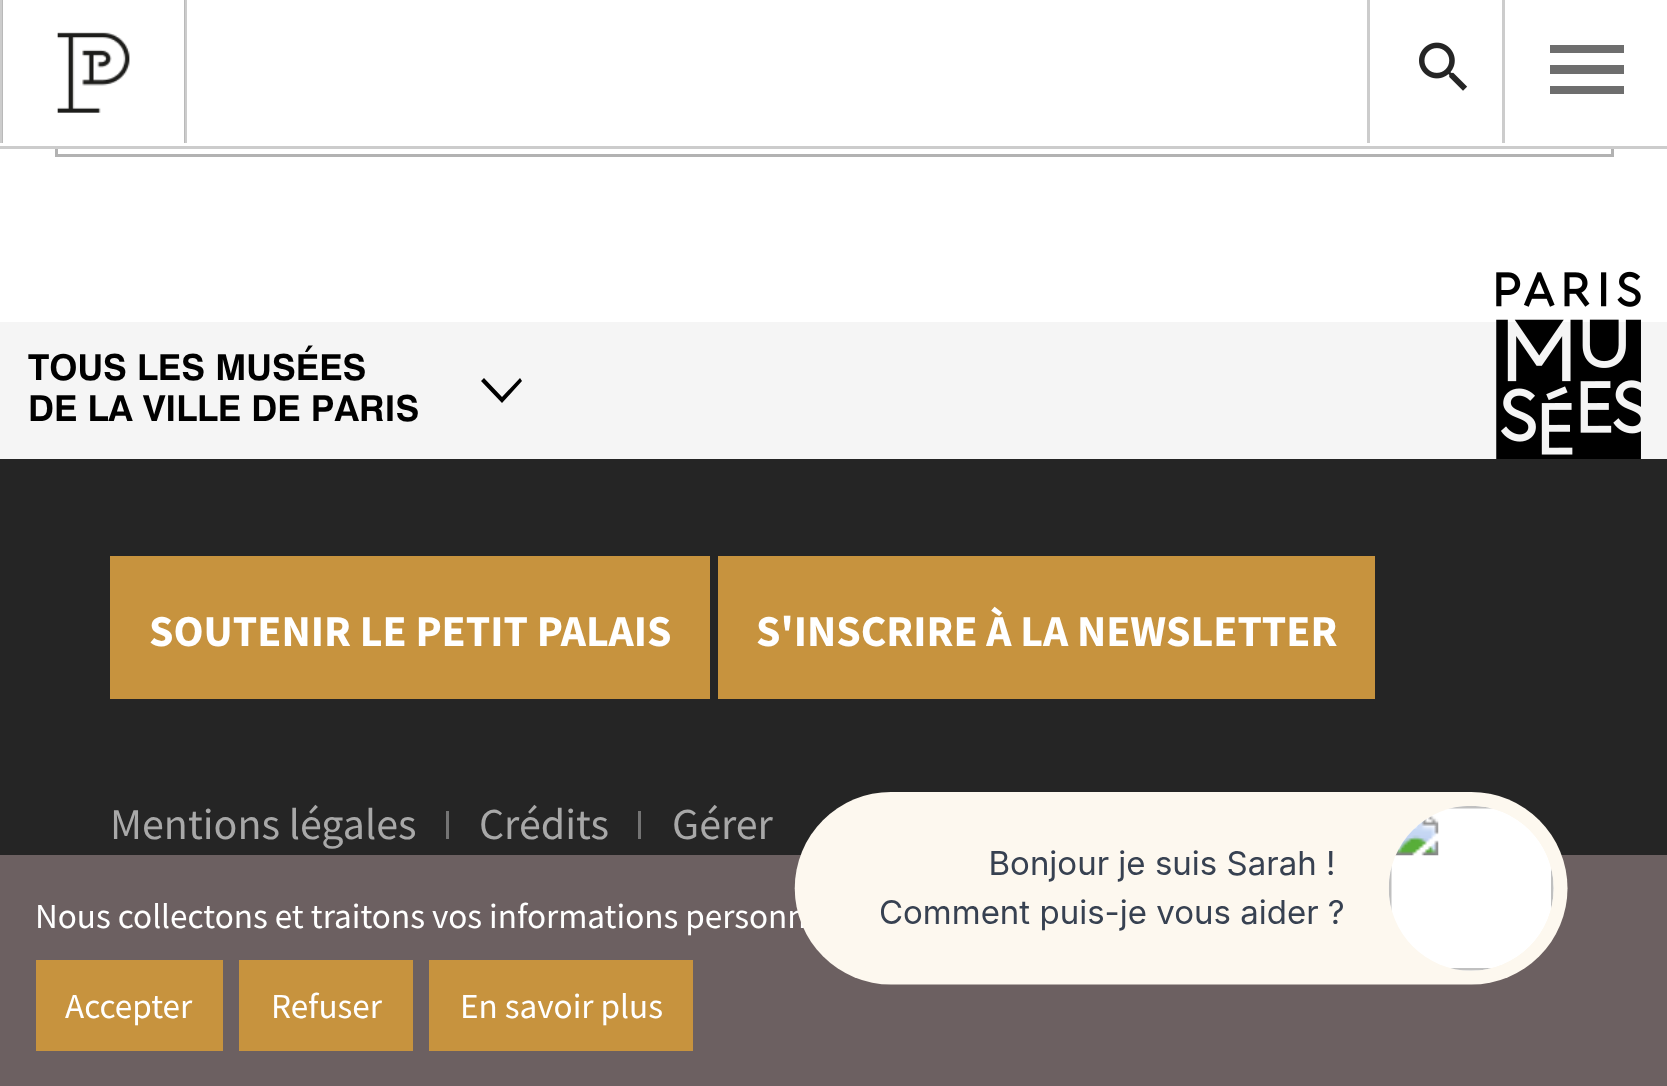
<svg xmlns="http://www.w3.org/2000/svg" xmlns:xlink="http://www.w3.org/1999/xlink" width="1667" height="1086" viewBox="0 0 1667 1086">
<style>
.cls-1{font:bold 35.75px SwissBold;fill:#000000}
.cls-2{font:bold 44px Source Sans Pro;fill:#ffffff}
.cls-3{font:44px Source Sans Pro;fill:#a8a8a8}
.cls-4{font:35.2px Source Sans Pro;fill:#ffffff}
</style>
<rect width="100%" height="100%" fill="#ffffff"/>
<rect fill="none" stroke="#b2b2b2" stroke-width="3" x="56.5" y="-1.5" width="1556" height="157"/>
<rect fill="#ffffff" x="55" y="0" width="1559" height="146"/>
<rect fill="#cccccc" x="0" y="146" width="1667" height="3"/>
<rect fill="#cccccc" x="184" y="0" width="3" height="143"/>
<rect fill="#cccccc" x="0" y="0" width="3" height="143"/>
<image xlink:href="image0.png" x="2" y="0" width="183" height="143"/>
<image xlink:href="image1.png" x="2" y="0" width="183" height="143"/>
<rect fill="#cccccc" x="1502" y="0" width="3" height="143"/>
<rect fill="#cccccc" x="1367" y="0" width="3" height="143"/>
<image xlink:href="image2.png" x="1419" y="42" width="49" height="49"/>
<path fill="#6e6e6e" d="M1550 45H1624V53H1550ZM1550 65H1624V74H1550ZM1550 86H1624V94H1550Z"/>
<rect fill="#252525" x="0" y="459" width="1667" height="396"/>
<rect fill="#f5f5f5" x="0" y="322" width="1667" height="137"/>
<path fill="#000000" d="M520 378L522 381L502 403L481 381L484 378L502 397Z"/>
<image xlink:href="image3.png" x="1496" y="271" width="145" height="188"/>
<rect fill="#c7933e" x="110" y="556" width="600" height="143"/>
<rect fill="#c7933e" x="718" y="556" width="657" height="143"/>
<rect fill="#747474" x="446" y="811" width="3" height="28"/>
<rect fill="#747474" x="638" y="811" width="3" height="28"/>
<rect fill="#6c6061" x="0" y="855" width="1667" height="231"/>
<rect fill="#c7933e" x="36" y="960" width="187" height="91"/>
<rect fill="#c7933e" x="239" y="960" width="174" height="91"/>
<rect fill="#c7933e" x="429" y="960" width="264" height="91"/>
<text class="cls-1"><tspan x="28" y="380">TOUS LES MUSÉES</tspan><tspan x="28" y="421">DE LA VILLE DE PARIS</tspan></text>
<text class="cls-2" x="149" y="646">SOUTENIR LE PETIT PALAIS</text>
<text class="cls-2" x="756" y="646">S'INSCRIRE À LA NEWSLETTER</text>
<text class="cls-3" x="110" y="839">Mentions légales</text>
<text class="cls-3" x="479" y="839">Crédits</text>
<text class="cls-3" x="672" y="839">Gérer</text>
<text class="cls-4" x="35" y="928">Nous collectons et traitons vos informations personn</text>
<text class="cls-4" x="65" y="1018">Accepter</text>
<text class="cls-4" x="271" y="1018">Refuser</text>
<text class="cls-4" x="460" y="1018">En savoir plus</text>
<image xlink:href="image4.png" x="794" y="792" width="774" height="193"/>
</svg>
